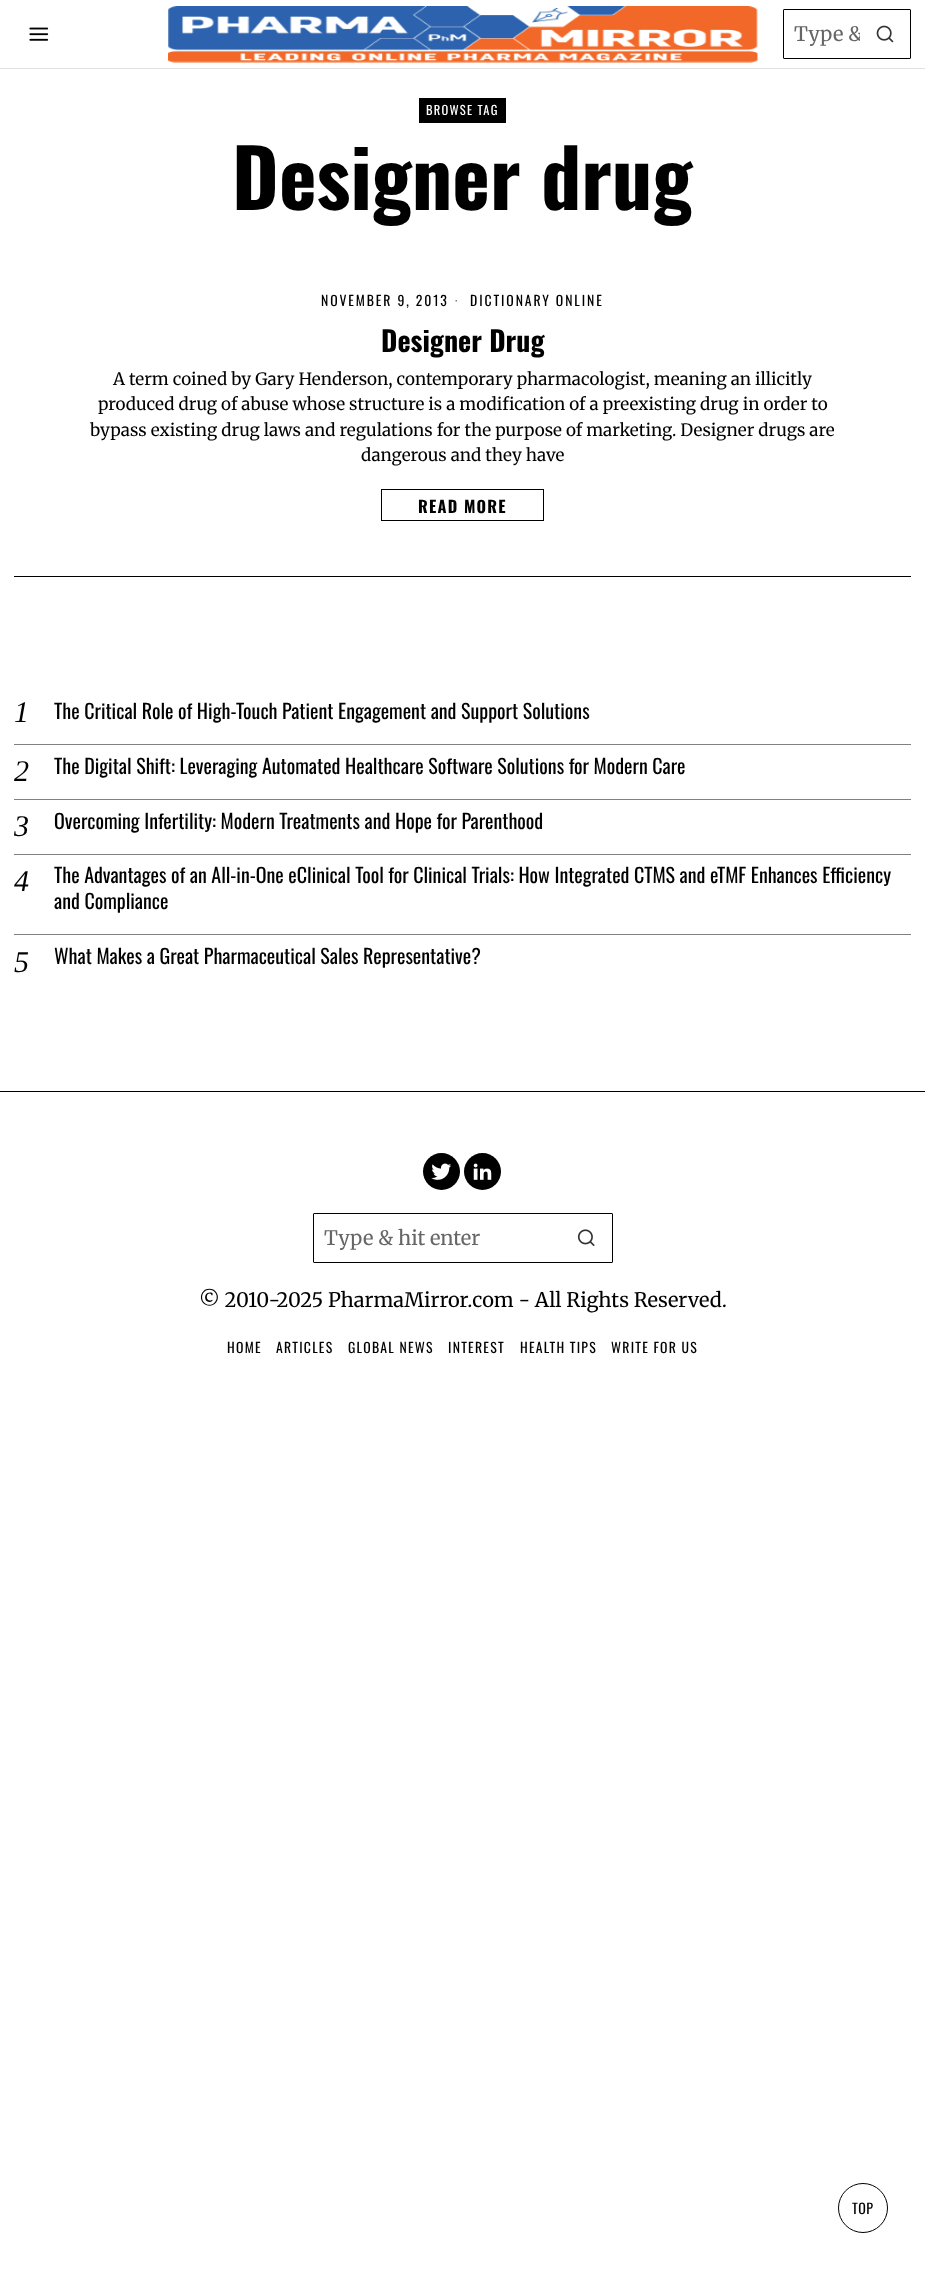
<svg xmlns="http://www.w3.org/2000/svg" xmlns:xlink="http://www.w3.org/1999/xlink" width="925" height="2269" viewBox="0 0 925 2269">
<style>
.cls-1{font:20px Merriweather;fill:#666666}
.cls-2{font:12.5px Oswald;letter-spacing:1.25px;fill:#ffffff}
.cls-3{font:bold 80px Oswald;fill:#000000}
.cls-4{font:13.75px Oswald;letter-spacing:1.9px;fill:#000000}
.cls-5{font:13.75px Oswald;letter-spacing:1.9px;fill:#808080}
.cls-6{font:bold 28px Oswald;fill:#000000}
.cls-7{font:17px Merriweather;fill:#000000}
.cls-8{font:bold 16.25px Oswald;letter-spacing:1.25px;fill:#000000}
.cls-9{font:italic 30px Liberation Serif;fill:#000000}
.cls-10{font:20px Oswald;fill:#000000}
.cls-11{font:20px Merriweather;fill:#000000}
.cls-12{font:13.75px Oswald;letter-spacing:1.25px;fill:#000000}
.cls-13{font:14px Oswald;letter-spacing:0.5px;fill:#000000}
</style>
<defs>
<clipPath id="clip1"><rect x="794" y="21" width="66" height="25"/></clipPath>
</defs>
<rect width="100%" height="100%" fill="#ffffff"/>
<rect fill="#e0e0e0" x="0" y="68" width="925" height="1"/>
<image xlink:href="image0.png" x="29" y="27" width="20" height="14"/>
<image xlink:href="image1.png" x="168" y="6" width="590" height="57"/>
<rect fill="none" stroke="#000000" x="783.5" y="9.5" width="127" height="49" rx="0.5"/>
<image xlink:href="image2.png" x="876" y="25" width="18" height="18"/>
<rect fill="#000000" x="419" y="98" width="87" height="25"/>
<rect fill="#000000" x="14" y="576" width="897" height="1"/>
<rect fill="none" stroke="#000000" x="381.5" y="489.5" width="162" height="31"/>
<rect fill="#808080" x="14" y="744" width="897" height="1"/>
<rect fill="#808080" x="14" y="799" width="897" height="1"/>
<rect fill="#808080" x="14" y="854" width="897" height="1"/>
<rect fill="#808080" x="14" y="934" width="897" height="1"/>
<rect fill="#000000" x="0" y="1091" width="925" height="1"/>
<circle fill="#000000" cx="441.5" cy="1171.5" r="18.5"/>
<image xlink:href="image3.png" x="431" y="1163" width="21" height="17"/>
<circle fill="#000000" cx="482.5" cy="1171.5" r="18.5"/>
<image xlink:href="image4.png" x="473" y="1163" width="19" height="17"/>
<rect fill="none" stroke="#000000" x="313.5" y="1213.5" width="299" height="49" rx="0.5"/>
<image xlink:href="image5.png" x="577" y="1229" width="18" height="17"/>
<circle fill="none" stroke="#000000" cx="863" cy="2208" r="24.5"/>
<g clip-path="url(#clip1)">
<text class="cls-1" x="794" y="41">Type &amp;</text>
</g>
<text class="cls-2" x="426" y="115">BROWSE TAG</text>
<text class="cls-3" x="232" y="210">Designer drug</text>
<text class="cls-4" x="321" y="306">NOVEMBER 9, 2013</text>
<text class="cls-5" x="455" y="306">·</text>
<text class="cls-4" x="470" y="306">DICTIONARY ONLINE</text>
<text class="cls-6" x="381" y="352">Designer Drug</text>
<text class="cls-7" x="113" y="385">A term coined by Gary Henderson, contemporary pharmacologist, meaning an illicitly</text>
<text class="cls-7" x="98" y="410">produced drug of abuse whose structure is a modification of a preexisting drug in order to</text>
<text class="cls-7" x="90" y="436">bypass existing drug laws and regulations for the purpose of marketing. Designer drugs are</text>
<text class="cls-7" x="361" y="461">dangerous and they have</text>
<text class="cls-8" x="418" y="513">READ MORE</text>
<text class="cls-9" x="14" y="722">1</text>
<text class="cls-10" x="54" y="719">The Critical Role of High-Touch Patient Engagement and Support Solutions</text>
<text class="cls-9" x="14" y="781">2</text>
<text class="cls-10" x="54" y="774">The Digital Shift: Leveraging Automated Healthcare Software Solutions for Modern Care</text>
<text class="cls-9" x="14" y="836">3</text>
<text class="cls-10" x="54" y="829">Overcoming Infertility: Modern Treatments and Hope for Parenthood</text>
<text class="cls-9" x="14" y="891">4</text>
<text class="cls-10"><tspan x="54" y="883">The Advantages of an All-in-One eClinical Tool for Clinical Trials: How Integrated CTMS and eTMF Enhances Efficiency</tspan><tspan x="54" y="909">and Compliance</tspan></text>
<text class="cls-9" x="14" y="972">5</text>
<text class="cls-10" x="54" y="964">What Makes a Great Pharmaceutical Sales Representative?</text>
<text class="cls-1" x="324" y="1245">Type &amp; hit enter</text>
<text class="cls-11" x="199" y="1307">© 2010-2025 PharmaMirror.com - All Rights Reserved.</text>
<text class="cls-12" x="227" y="1353">HOME</text>
<text class="cls-12" x="276" y="1353">ARTICLES</text>
<text class="cls-12" x="348" y="1353">GLOBAL NEWS</text>
<text class="cls-12" x="448" y="1353">INTEREST</text>
<text class="cls-12" x="520" y="1353">HEALTH TIPS</text>
<text class="cls-12" x="611" y="1353">WRITE FOR US</text>
<text class="cls-13" x="852" y="2214">TOP</text>
</svg>
